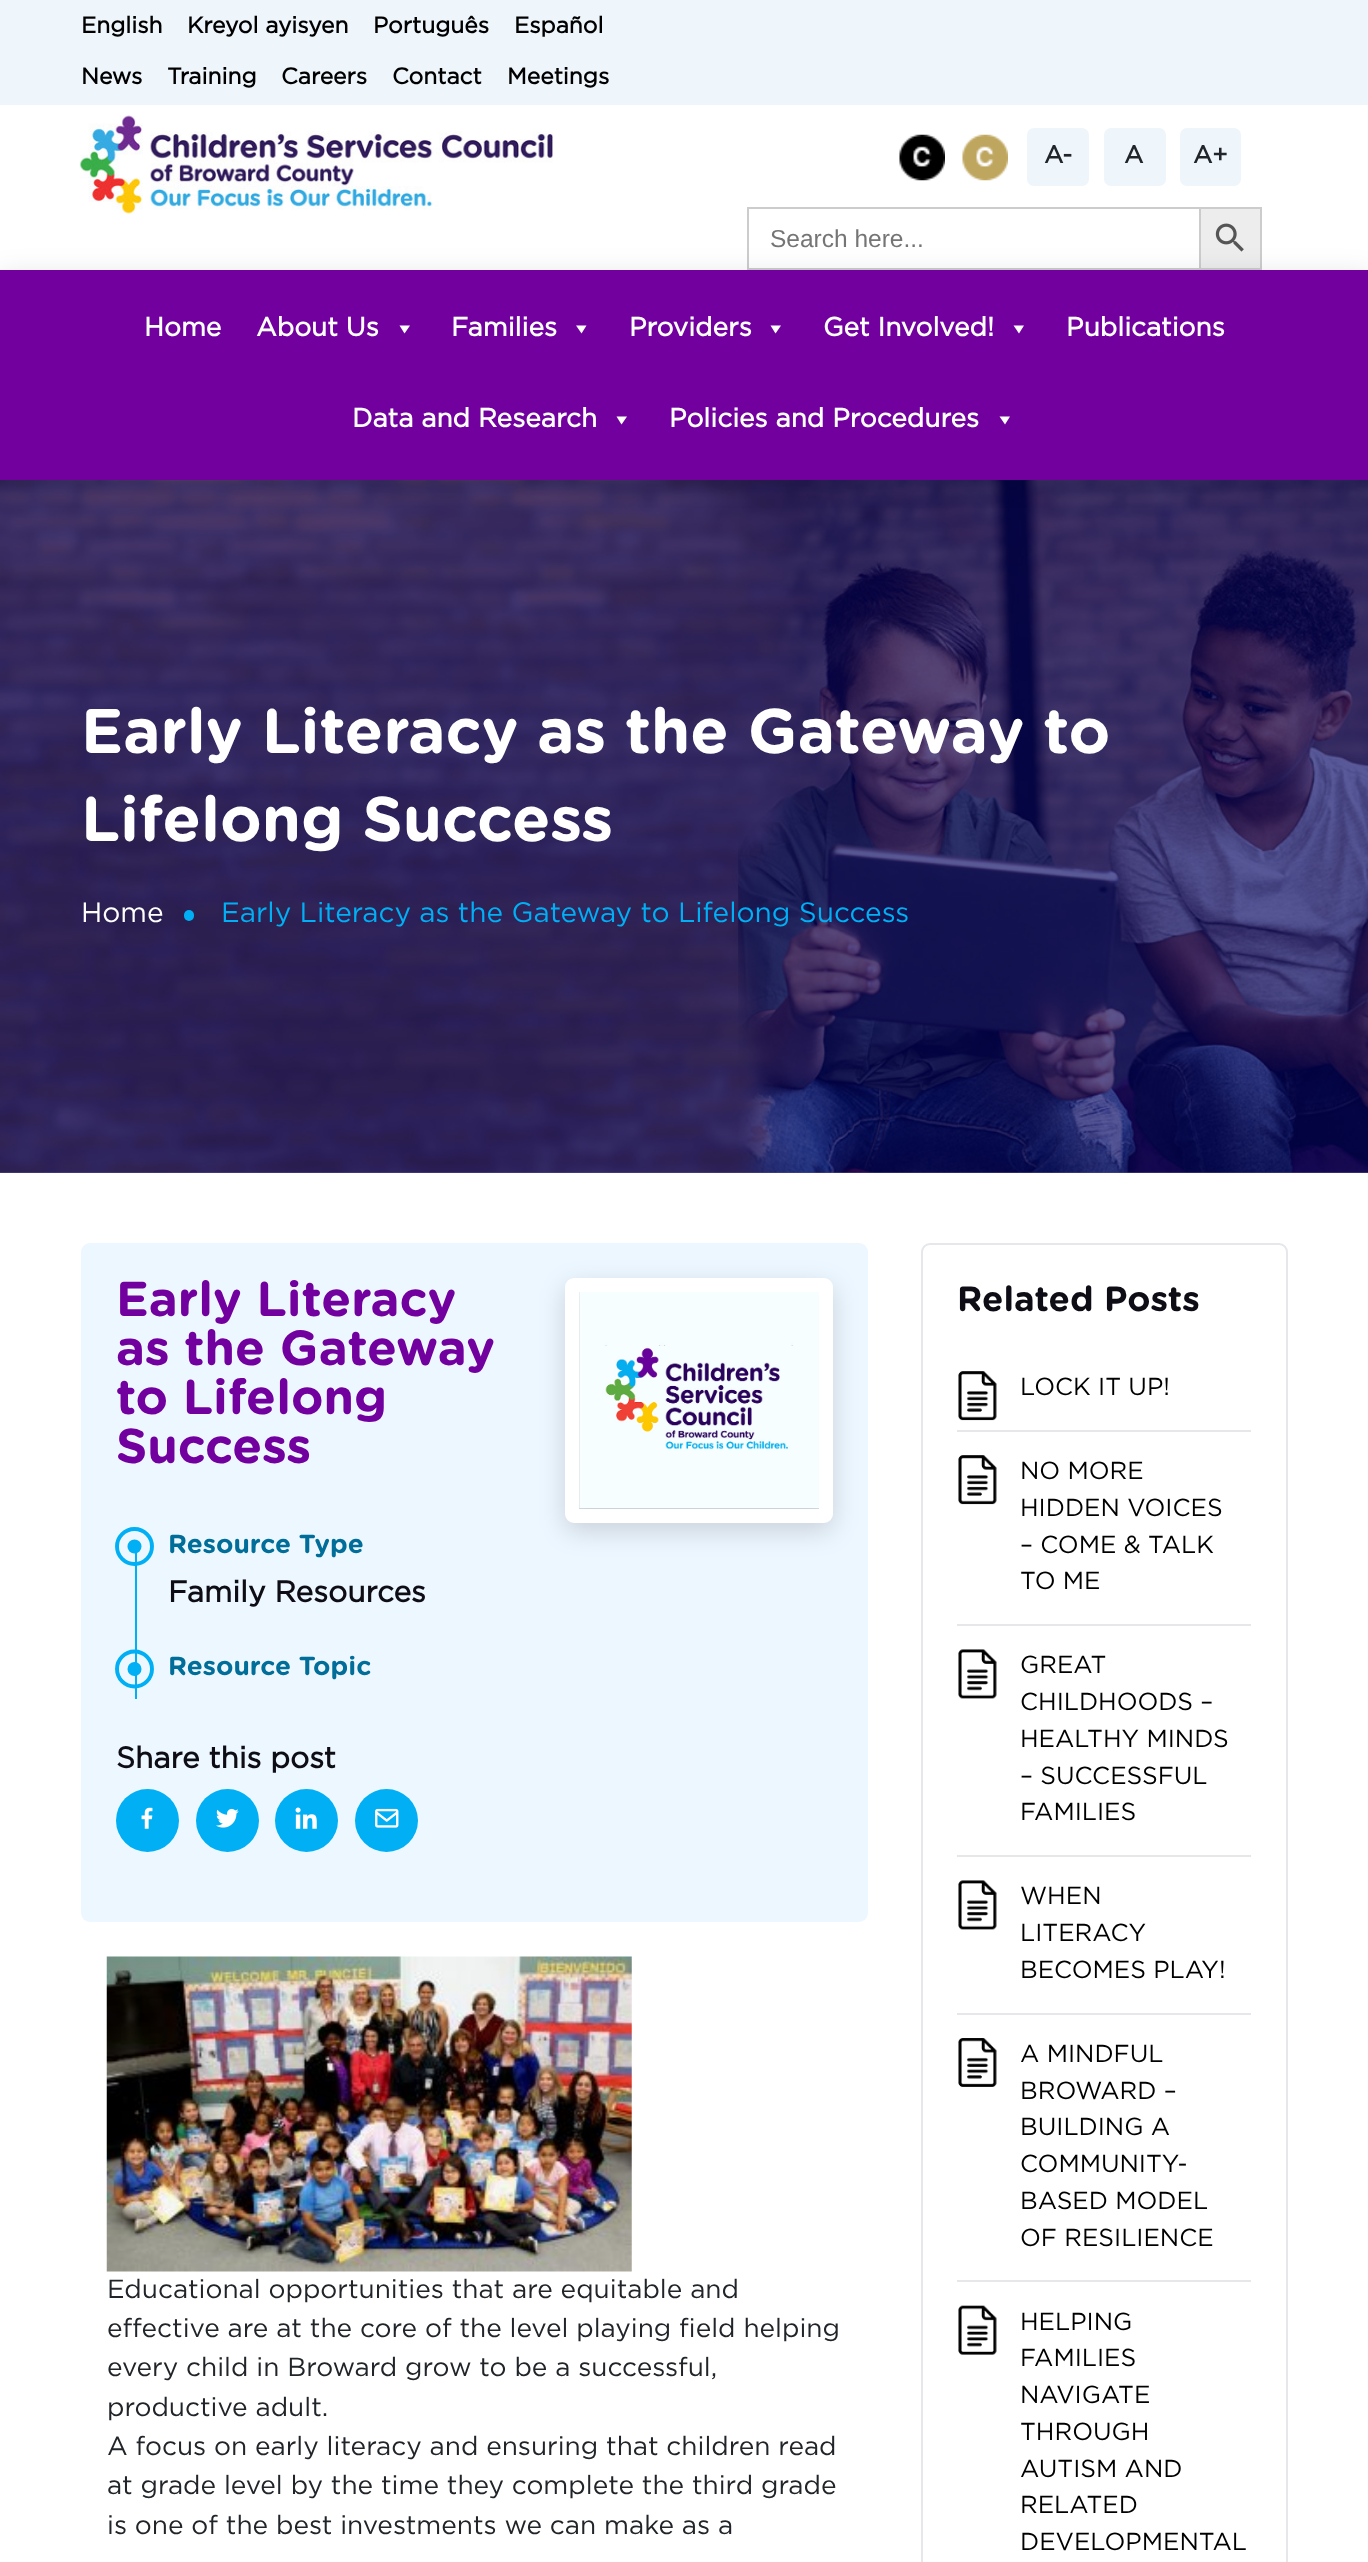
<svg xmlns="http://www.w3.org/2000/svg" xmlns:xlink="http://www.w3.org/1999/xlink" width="1368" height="2562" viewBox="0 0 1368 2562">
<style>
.cls-1{font:bold 22.75px Gotham;fill:#000000}
.cls-2{font:bold 24.5px Gotham;fill:#212529}
.cls-3{font:24.5px Liberation Sans;fill:#757575}
.cls-4{font:bold 26.25px Gotham;fill:#ffffff}
.cls-5{font:bold 63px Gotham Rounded;fill:#ffffff}
.cls-6{font:28px Gotham;fill:#ffffff}
.cls-7{font:28px Gotham;fill:#00aff4}
.cls-8{font:bold 49px Gotham Rounded;fill:#71009f}
.cls-9{font:bold 26.25px Gotham Rounded;fill:#006e99}
.cls-10{font:bold 29.75px Gotham;fill:#0e0d15}
.cls-11{font:26.25px Gotham;fill:#212529}
.cls-12{font:bold 35px Gotham Rounded;fill:#0e0d15}
.cls-13{font:24.5px Gotham;fill:#000000}
</style>
<rect width="100%" height="100%" fill="#ffffff"/>
<rect fill="#eef5fb" x="0" y="0" width="1368" height="105"/>
<image xlink:href="image0.png" x="80" y="115" width="473" height="99"/>
<image xlink:href="image1.png" x="899" y="134" width="46" height="47"/>
<image xlink:href="image2.png" x="962" y="134" width="46" height="47"/>
<rect fill="#eef5fb" x="1027" y="128" width="62" height="58" rx="7"/>
<rect fill="#eef5fb" x="1104" y="128" width="62" height="58" rx="7"/>
<rect fill="#eef5fb" x="1180" y="128" width="61" height="58" rx="7"/>
<rect fill="#cccccc" x="747" y="207" width="452" height="2"/>
<rect fill="#cccccc" x="747" y="268" width="452" height="2"/>
<rect fill="#cccccc" x="747" y="207" width="2" height="63"/>
<rect fill="#ededed" stroke="#cccccc" stroke-width="2" x="1200" y="208" width="61" height="61"/>
<image xlink:href="image3.png" x="1215" y="223" width="29" height="29"/>
<rect fill="#4f4f8e" x="0" y="1172" width="1368" height="1"/>
<image xlink:href="image4.png" x="0" y="480" width="1368" height="693"/>
<rect fill="#000000" fill-opacity="0.1" filter="blur(13px)" x="0" y="273" width="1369" height="210"/>
<rect fill="#71009f" x="0" y="270" width="1368" height="210"/>
<path fill="#ffffff" d="M410 325.5L404.5 333.5L399.5 325.5Z"/>
<path fill="#ffffff" d="M586.5 325.5L581.5 333.5L576 325.5Z"/>
<path fill="#ffffff" d="M781 325.5L775.5 333.5L770.5 325.5Z"/>
<path fill="#ffffff" d="M1024 325.5L1019 333.5L1013.5 325.5Z"/>
<path fill="#ffffff" d="M627 416.5L621.5 424.5L616.5 416.5Z"/>
<path fill="#ffffff" d="M1010 416.5L1005 424.5L999.5 416.5Z"/>
<rect fill="#00aff4" x="184" y="910" width="10" height="11" rx="5"/>
<rect fill="#edf7ff" x="81" y="1243" width="787" height="679" rx="9"/>
<rect fill="#00aff4" x="135" y="1553" width="2" height="146"/>
<circle fill="#00aff4" cx="134.5" cy="1546.5" r="7"/>
<circle fill="none" stroke="#00aff4" stroke-width="3.9" cx="134.5" cy="1546.5" r="17.5"/>
<circle fill="#00aff4" cx="134.5" cy="1669" r="7"/>
<circle fill="none" stroke="#00aff4" stroke-width="3.9" cx="134.5" cy="1669" r="17.5"/>
<circle fill="#00aff4" cx="147.5" cy="1820.5" r="31.5"/>
<image xlink:href="image5.png" x="141" y="1807" width="12" height="22"/>
<circle fill="#00aff4" cx="227.5" cy="1820.5" r="31.5"/>
<image xlink:href="image6.png" x="216" y="1808" width="23" height="20"/>
<circle fill="#00aff4" cx="306.5" cy="1820.5" r="31.5"/>
<image xlink:href="image7.png" x="295" y="1807" width="22" height="22"/>
<circle fill="#00aff4" cx="386.5" cy="1820.5" r="31.5"/>
<image xlink:href="image8.png" x="375" y="1808" width="24" height="20"/>
<rect fill="#000000" fill-opacity="0.15" filter="blur(13px)" x="565" y="1286" width="268" height="245" rx="9"/>
<rect fill="none" stroke="#ffffff" stroke-width="14" x="572" y="1285" width="254" height="231" rx="2"/>
<image xlink:href="image9.png" x="579" y="1292" width="240" height="216"/>
<image xlink:href="image10.png" x="106" y="1956" width="526" height="316"/>
<rect fill="none" stroke="#e5e7eb" stroke-width="2" x="922" y="1244" width="365" height="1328" rx="8"/>
<rect fill="#e5e7eb" x="957" y="1430" width="294" height="2"/>
<image xlink:href="image11.png" x="958" y="1371" width="39" height="50"/>
<rect fill="#e5e7eb" x="957" y="1624" width="294" height="2"/>
<image xlink:href="image12.png" x="958" y="1455" width="39" height="50"/>
<rect fill="#e5e7eb" x="957" y="1855" width="294" height="2"/>
<image xlink:href="image13.png" x="958" y="1649" width="39" height="50"/>
<rect fill="#e5e7eb" x="957" y="2013" width="294" height="2"/>
<image xlink:href="image13.png" x="958" y="1880" width="39" height="50"/>
<rect fill="#e5e7eb" x="957" y="2280" width="294" height="2"/>
<image xlink:href="image14.png" x="958" y="2038" width="39" height="49"/>
<image xlink:href="image15.png" x="958" y="2305" width="39" height="50"/>
<text class="cls-1" x="81" y="33">English</text>
<text class="cls-1" x="187" y="33">Kreyol ayisyen</text>
<text class="cls-1" x="373" y="33">Português</text>
<text class="cls-1" x="514" y="33">Español</text>
<text class="cls-1" x="81" y="84">News</text>
<text class="cls-1" x="167" y="84">Training</text>
<text class="cls-1" x="281" y="84">Careers</text>
<text class="cls-1" x="392" y="84">Contact</text>
<text class="cls-1" x="507" y="84">Meetings</text>
<text class="cls-2" x="1044" y="163">A-</text>
<text class="cls-2" x="1124" y="163">A</text>
<text class="cls-2" x="1193" y="163">A+</text>
<text class="cls-3" x="770" y="247">Search here...</text>
<text class="cls-4" x="144" y="336">Home</text>
<text class="cls-4" x="256" y="336">About Us</text>
<text class="cls-4" x="451" y="336">Families</text>
<text class="cls-4" x="629" y="336">Providers</text>
<text class="cls-4" x="823" y="336">Get Involved!</text>
<text class="cls-4" x="1066" y="336">Publications</text>
<text class="cls-4" x="352" y="427">Data and Research</text>
<text class="cls-4" x="669" y="427">Policies and Procedures</text>
<text class="cls-5"><tspan x="81" y="753">Early Literacy as the Gateway to</tspan><tspan x="81" y="841">Lifelong Success</tspan></text>
<text class="cls-6" x="81" y="922">Home</text>
<text class="cls-7" x="221" y="922">Early Literacy as the Gateway to Lifelong Success</text>
<text class="cls-8"><tspan x="116" y="1316">Early Literacy</tspan><tspan x="116" y="1365">as the Gateway</tspan><tspan x="116" y="1414">to Lifelong</tspan><tspan x="116" y="1463">Success</tspan></text>
<text class="cls-9" x="168" y="1553">Resource Type</text>
<text class="cls-10" x="168" y="1602">Family Resources</text>
<text class="cls-9" x="168" y="1675">Resource Topic</text>
<text class="cls-10" x="116" y="1768">Share this post</text>
<text class="cls-11"><tspan x="107" y="2298">Educational opportunities that are equitable and</tspan><tspan x="107" y="2337">effective are at the core of the level playing field helping</tspan><tspan x="107" y="2376">every child in Broward grow to be a successful,</tspan><tspan x="107" y="2416">productive adult.</tspan><tspan x="107" y="2455">A focus on early literacy and ensuring that children read</tspan><tspan x="107" y="2494">at grade level by the time they complete the third grade</tspan><tspan x="107" y="2534">is one of the best investments we can make as a</tspan></text>
<text class="cls-12" x="957" y="1311">Related Posts</text>
<text class="cls-13" x="1020" y="1395">LOCK IT UP!</text>
<text class="cls-13"><tspan x="1020" y="1479">NO MORE</tspan><tspan x="1020" y="1516">HIDDEN VOICES</tspan><tspan x="1020" y="1553">– COME &amp; TALK</tspan><tspan x="1020" y="1589">TO ME</tspan></text>
<text class="cls-13"><tspan x="1020" y="1673">GREAT</tspan><tspan x="1020" y="1710">CHILDHOODS –</tspan><tspan x="1020" y="1747">HEALTHY MINDS</tspan><tspan x="1020" y="1784">– SUCCESSFUL</tspan><tspan x="1020" y="1820">FAMILIES</tspan></text>
<text class="cls-13"><tspan x="1020" y="1904">WHEN</tspan><tspan x="1020" y="1941">LITERACY</tspan><tspan x="1020" y="1978">BECOMES PLAY!</tspan></text>
<text class="cls-13"><tspan x="1020" y="2062">A MINDFUL</tspan><tspan x="1020" y="2099">BROWARD –</tspan><tspan x="1020" y="2135">BUILDING A</tspan><tspan x="1020" y="2172">COMMUNITY-</tspan><tspan x="1020" y="2209">BASED MODEL</tspan><tspan x="1020" y="2246">OF RESILIENCE</tspan></text>
<text class="cls-13"><tspan x="1020" y="2330">HELPING</tspan><tspan x="1020" y="2366">FAMILIES</tspan><tspan x="1020" y="2403">NAVIGATE</tspan><tspan x="1020" y="2440">THROUGH</tspan><tspan x="1020" y="2477">AUTISM AND</tspan><tspan x="1020" y="2513">RELATED</tspan><tspan x="1020" y="2550">DEVELOPMENTAL</tspan></text>
</svg>
